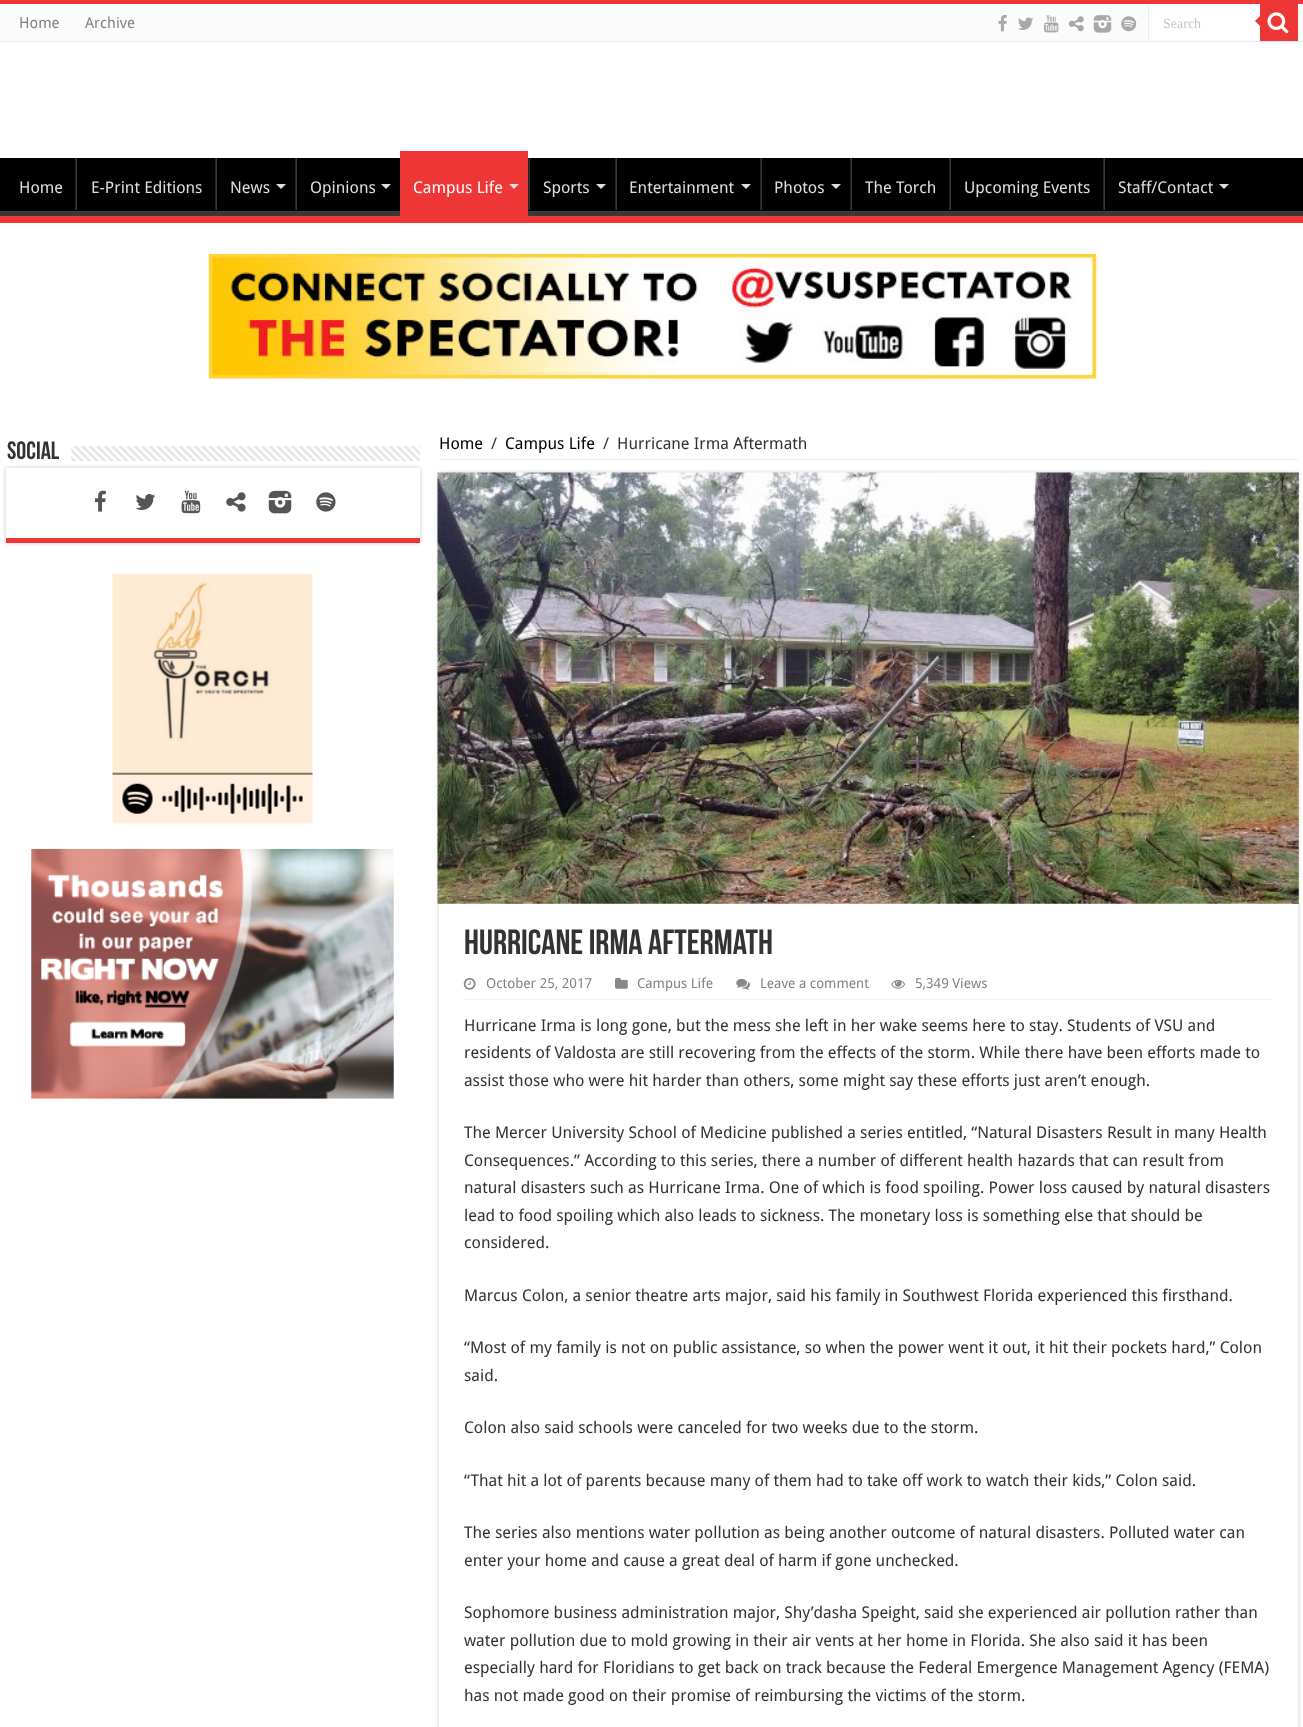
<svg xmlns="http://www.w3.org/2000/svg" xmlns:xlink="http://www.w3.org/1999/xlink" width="1303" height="1727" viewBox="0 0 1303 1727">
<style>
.cls-1{font:15px Droid Sans;fill:#838383}
.cls-2{font:14px Liberation Serif;fill:#c5c5c5}
.cls-3{font:16.25px Droid Sans;fill:#dddddd}
.cls-4{font:16.25px Droid Sans;fill:#ffffff}
.cls-5{font:bold 25px Bebas Neue;fill:#333333}
.cls-6{font:16.25px Droid Sans;fill:#000000}
.cls-7{font:16.25px Droid Sans;fill:#333333}
.cls-8{font:bold 35px Bebas Neue;fill:#333333}
.cls-9{font:13.75px Droid Sans;fill:#838383}
</style>
<defs>
<clipPath id="clip1"><rect x="0" y="158" width="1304" height="58"/></clipPath>
</defs>
<rect width="100%" height="100%" fill="#ffffff"/>
<rect fill="#ef3636" x="0" y="0" width="1303" height="4"/>
<rect fill="#fbfbfb" x="0" y="4" width="1303" height="39"/>
<rect fill="#ececec" x="0" y="41" width="1303" height="1"/>
<image xlink:href="image0.png" x="998" y="15" width="9" height="17"/>
<image xlink:href="image1.png" x="1018" y="17" width="15" height="13"/>
<image xlink:href="image2.png" x="1044" y="15" width="15" height="18"/>
<image xlink:href="image3.png" x="1068" y="16" width="16" height="16"/>
<image xlink:href="image4.png" x="1093" y="15" width="19" height="18"/>
<image xlink:href="image5.png" x="1121" y="16" width="16" height="16"/>
<rect fill="#ffffff" x="1149" y="4" width="111" height="36"/>
<rect fill="#ececec" x="1148" y="4" width="1" height="36"/>
<rect fill="#ef3636" x="1260" y="4" width="38" height="37"/>
<image xlink:href="image6.png" x="1267" y="12" width="22" height="22"/>
<path fill="#ef3636" d="M1260 16V26L1255 21Z"/>
<rect fill="#000000" x="0" y="158" width="1303" height="53"/>
<g clip-path="url(#clip1)">
<path fill="#393939" fill-rule="evenodd" d="M-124 34H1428V340H-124ZM-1 150H1302C1303 150 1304 151 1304 151V210C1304 211 1303 211 1302 211H-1C-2 211-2 211-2 210V151C-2 151-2 150-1 150Z"/>
</g>
<rect fill="#ef3636" x="0" y="216" width="1303" height="7"/>
<rect fill="#222222" x="75" y="158" width="1" height="52"/>
<rect fill="#383838" x="76" y="158" width="1" height="52"/>
<rect fill="#222222" x="215" y="158" width="1" height="52"/>
<rect fill="#383838" x="216" y="158" width="1" height="52"/>
<path fill="#dddddd" d="M276 184H286L281 189Z"/>
<rect fill="#222222" x="295" y="158" width="1" height="52"/>
<rect fill="#383838" x="296" y="158" width="1" height="52"/>
<path fill="#dddddd" d="M381 184H391L386 189Z"/>
<rect fill="#ef3636" x="400" y="151" width="128" height="65"/>
<path fill="#dddddd" d="M509 184H519L514 189Z"/>
<rect fill="#222222" x="528" y="158" width="1" height="52"/>
<rect fill="#383838" x="529" y="158" width="1" height="52"/>
<path fill="#dddddd" d="M596 184H606L601 189Z"/>
<rect fill="#222222" x="615" y="158" width="1" height="52"/>
<rect fill="#383838" x="616" y="158" width="1" height="52"/>
<path fill="#dddddd" d="M741 184H751L746 189Z"/>
<rect fill="#222222" x="760" y="158" width="1" height="52"/>
<rect fill="#383838" x="761" y="158" width="1" height="52"/>
<path fill="#dddddd" d="M831 184H841L836 189Z"/>
<rect fill="#222222" x="850" y="158" width="1" height="52"/>
<rect fill="#383838" x="851" y="158" width="1" height="52"/>
<rect fill="#222222" x="949" y="158" width="1" height="52"/>
<rect fill="#383838" x="950" y="158" width="1" height="52"/>
<rect fill="#222222" x="1103" y="158" width="1" height="52"/>
<rect fill="#383838" x="1104" y="158" width="1" height="52"/>
<path fill="#dddddd" d="M1219 184H1229L1224 189Z"/>
<image xlink:href="image7.png" x="208" y="253" width="889" height="126"/>
<rect fill="#cacaca" filter="blur(2px)" x="6" y="468" width="414" height="75"/>
<image xlink:href="image8.png" x="71" y="446" width="349" height="16"/>
<rect fill="#ffffff" x="6" y="468" width="414" height="70"/>
<rect fill="#ef3636" x="6" y="538" width="414" height="5"/>
<image xlink:href="image9.png" x="94" y="490" width="12" height="22"/>
<image xlink:href="image10.png" x="135" y="493" width="21" height="17"/>
<image xlink:href="image11.png" x="181" y="490" width="20" height="24"/>
<image xlink:href="image12.png" x="226" y="492" width="20" height="20"/>
<image xlink:href="image13.png" x="268" y="490" width="24" height="24"/>
<image xlink:href="image14.png" x="316" y="492" width="20" height="20"/>
<image xlink:href="image15.png" x="112" y="574" width="201" height="250"/>
<image xlink:href="image16.png" x="31" y="848" width="363" height="251"/>
<rect fill="#eeeeee" x="439" y="459" width="859" height="1"/>
<rect fill="#cacaca" filter="blur(2px)" x="439" y="473" width="859" height="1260"/>
<rect fill="#ffffff" x="439" y="903" width="859" height="824"/>
<image xlink:href="image17.png" x="437" y="472" width="862" height="432"/>
<rect fill="#f2f2f2" x="464" y="999" width="809" height="1"/>
<image xlink:href="image18.png" x="463" y="977" width="13" height="13"/>
<image xlink:href="image19.png" x="615" y="977" width="13" height="12"/>
<image xlink:href="image20.png" x="736" y="978" width="14" height="12"/>
<image xlink:href="image21.png" x="891" y="979" width="14" height="10"/>
<text class="cls-1" x="19" y="28">Home</text>
<text class="cls-1" x="85" y="28">Archive</text>
<text class="cls-2" x="1163" y="28">Search</text>
<text class="cls-3" x="19" y="193">Home</text>
<text class="cls-3" x="91" y="193">E-Print Editions</text>
<text class="cls-3" x="230" y="193">News</text>
<text class="cls-3" x="310" y="193">Opinions</text>
<text class="cls-4" x="413" y="193">Campus Life</text>
<text class="cls-3" x="543" y="193">Sports</text>
<text class="cls-3" x="629" y="193">Entertainment</text>
<text class="cls-3" x="774" y="193">Photos</text>
<text class="cls-3" x="865" y="193">The Torch</text>
<text class="cls-3" x="964" y="193">Upcoming Events</text>
<text class="cls-3" x="1118" y="193">Staff/Contact</text>
<text class="cls-5" x="7" y="459">Social</text>
<text class="cls-6" x="439" y="449">Home</text>
<text class="cls-7" x="491" y="449">/</text>
<text class="cls-6" x="505" y="449">Campus Life</text>
<text class="cls-7" x="603" y="449">/</text>
<text class="cls-7" x="617" y="449">Hurricane Irma Aftermath</text>
<text class="cls-8" x="464" y="954">Hurricane Irma Aftermath</text>
<text class="cls-9" x="486" y="988">October 25, 2017</text>
<text class="cls-9" x="637" y="988">Campus Life</text>
<text class="cls-9" x="760" y="988">Leave a comment</text>
<text class="cls-9" x="915" y="988">5,349 Views</text>
<text class="cls-7"><tspan x="464" y="1031">Hurricane Irma is long gone, but the mess she left in her wake seems here to stay. Students of VSU and</tspan><tspan x="464" y="1058">residents of Valdosta are still recovering from the effects of the storm. While there have been efforts made to</tspan><tspan x="464" y="1086">assist those who were hit harder than others, some might say these efforts just aren’t enough.</tspan></text>
<text class="cls-7"><tspan x="464" y="1138">The Mercer University School of Medicine published a series entitled, “Natural Disasters Result in many Health</tspan><tspan x="464" y="1166">Consequences.” According to this series, there a number of different health hazards that can result from</tspan><tspan x="464" y="1193">natural disasters such as Hurricane Irma. One of which is food spoiling. Power loss caused by natural disasters</tspan><tspan x="464" y="1221">lead to food spoiling which also leads to sickness. The monetary loss is something else that should be</tspan><tspan x="464" y="1248">considered.</tspan></text>
<text class="cls-7" x="464" y="1301">Marcus Colon, a senior theatre arts major, said his family in Southwest Florida experienced this firsthand.</text>
<text class="cls-7"><tspan x="464" y="1353">“Most of my family is not on public assistance, so when the power went it out, it hit their pockets hard,” Colon</tspan><tspan x="464" y="1381">said.</tspan></text>
<text class="cls-7" x="464" y="1433">Colon also said schools were canceled for two weeks due to the storm.</text>
<text class="cls-7" x="464" y="1486">“That hit a lot of parents because many of them had to take off work to watch their kids,” Colon said.</text>
<text class="cls-7"><tspan x="464" y="1538">The series also mentions water pollution as being another outcome of natural disasters. Polluted water can</tspan><tspan x="464" y="1566">enter your home and cause a great deal of harm if gone unchecked.</tspan></text>
<text class="cls-7"><tspan x="464" y="1618">Sophomore business administration major, Shy’dasha Speight, said she experienced air pollution rather than</tspan><tspan x="464" y="1646">water pollution due to mold growing in their air vents at her home in Florida. She also said it has been</tspan><tspan x="464" y="1673">especially hard for Floridians to get back on track because the Federal Emergence Management Agency (FEMA)</tspan><tspan x="464" y="1701">has not made good on their promise of reimbursing the victims of the storm.</tspan></text>
</svg>
